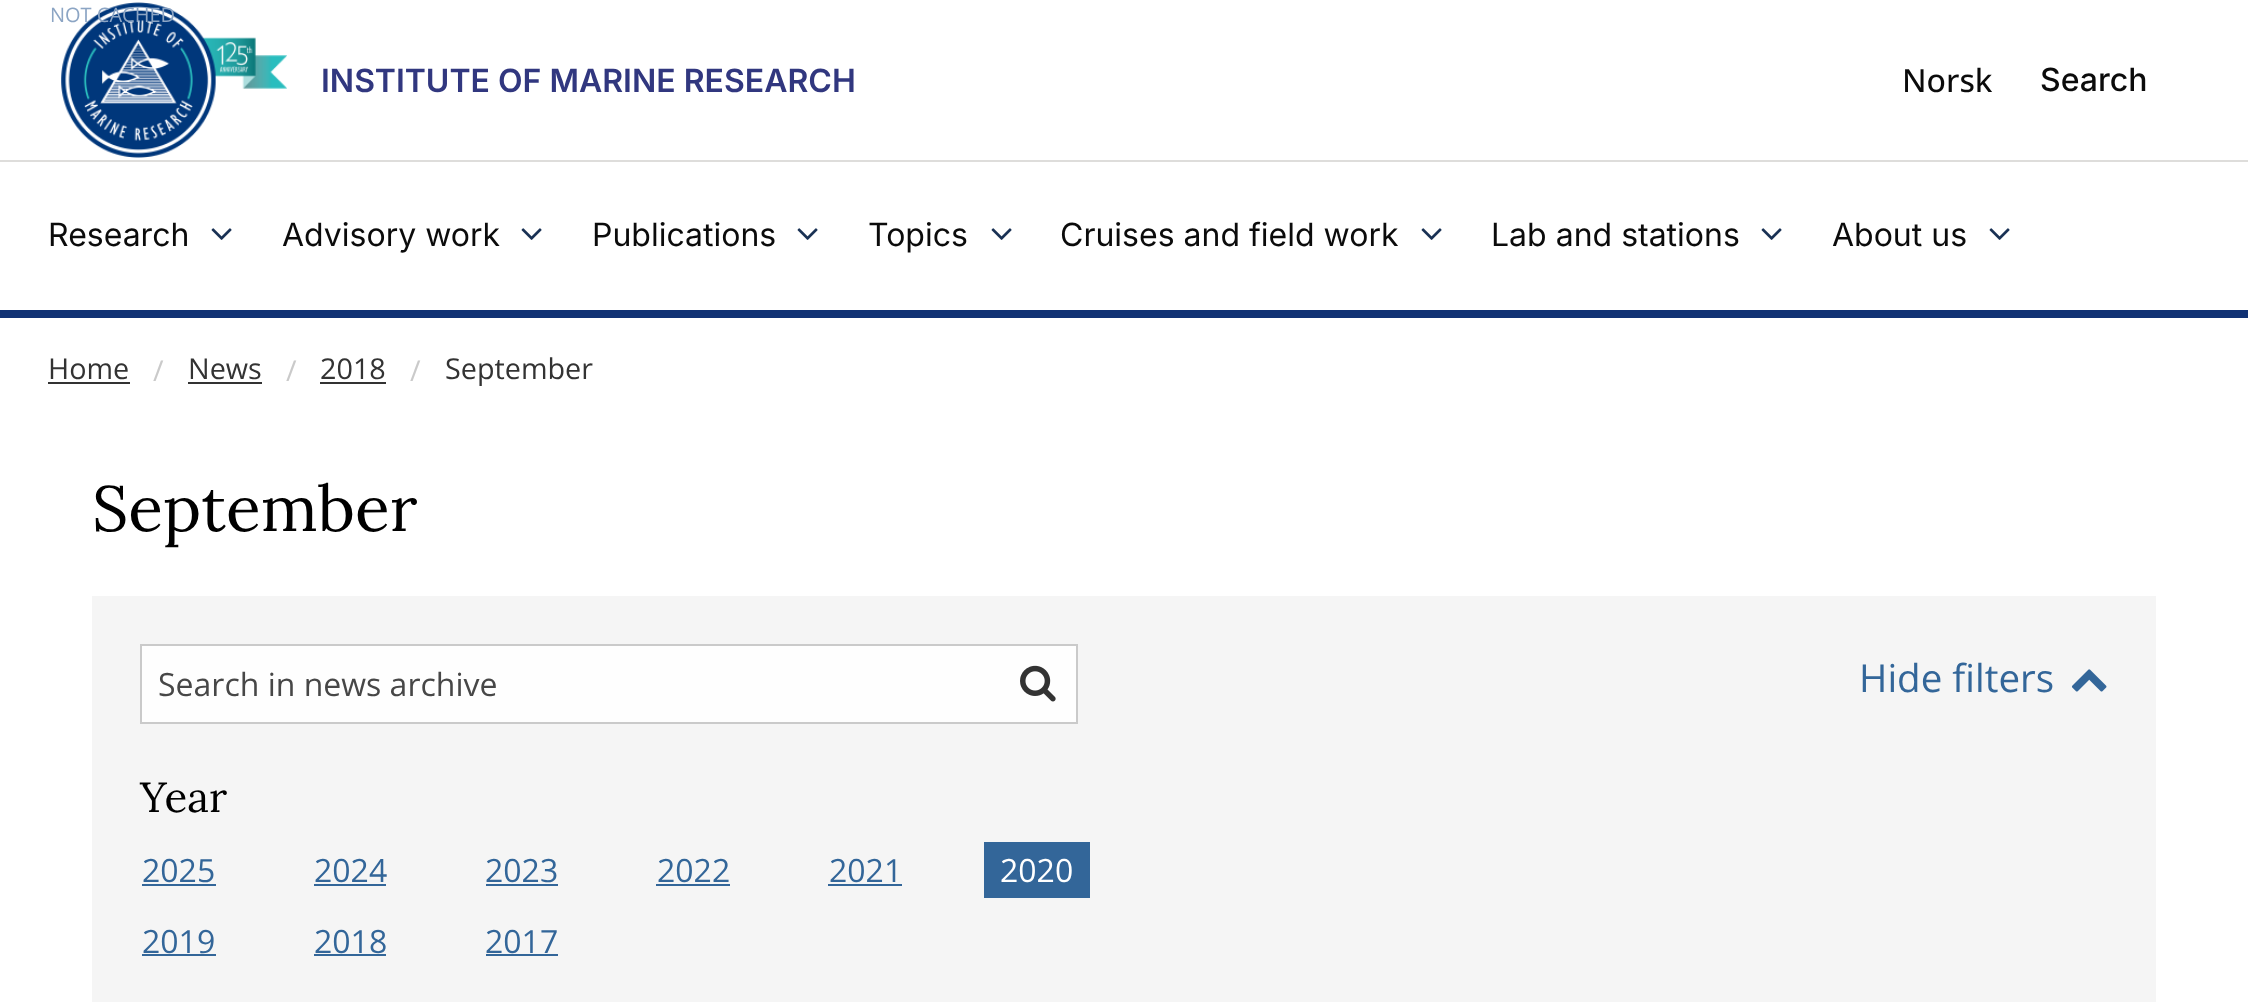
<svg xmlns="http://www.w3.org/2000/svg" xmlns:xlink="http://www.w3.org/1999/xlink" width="2248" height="1002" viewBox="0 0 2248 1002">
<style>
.cls-1{font:20px Open Sans;fill:#8ca5c4}
.cls-2{font:64px Lora;fill:#000000}
.cls-3{font:32px Open Sans;fill:#474747}
.cls-4{font:38.5px Open Sans;fill:#336699}
.cls-5{font:42px Lora;fill:#000000}
.cls-6{font:32px Open Sans;fill:#336699}
.cls-7{font:32px Open Sans;fill:#ffffff}
.cls-8{font:600 32px Inter;fill:#31377f}
.cls-9{font:500 32px Open Sans;fill:#0b0b0b}
.cls-10{font:500 32px Inter;fill:#0b0b0b}
.cls-11{font:32px Inter;fill:#0b0b0b}
.cls-12{font:28.75px Open Sans;fill:#333333}
.cls-13{font:28.75px Open Sans;fill:#cacaca}
</style>
<rect width="100%" height="100%" fill="#ffffff"/>
<rect fill="#f5f5f5" x="92" y="596" width="2064" height="406"/>
<rect fill="#fefefe" stroke="#cacaca" stroke-width="2" x="141" y="645" width="936" height="78"/>
<image xlink:href="image0.png" x="1020" y="665" width="36" height="37"/>
<image xlink:href="image1.png" x="2071" y="669" width="36" height="23"/>
<rect fill="#336699" x="142" y="884" width="74" height="2"/>
<rect fill="#336699" x="314" y="884" width="72" height="2"/>
<rect fill="#336699" x="486" y="884" width="72" height="2"/>
<rect fill="#336699" x="656" y="884" width="74" height="2"/>
<rect fill="#336699" x="828" y="884" width="74" height="2"/>
<rect fill="#336699" x="984" y="842" width="106" height="56"/>
<rect fill="#336699" x="142" y="954" width="74" height="2"/>
<rect fill="#336699" x="314" y="954" width="72" height="2"/>
<rect fill="#336699" x="486" y="954" width="72" height="2"/>
<image xlink:href="image2.png" x="61" y="2" width="226" height="156"/>
<rect fill="#dedddb" x="0" y="160" width="2248" height="2"/>
<image xlink:href="image3.png" x="211" y="228" width="21" height="12"/>
<image xlink:href="image3.png" x="521" y="228" width="21" height="12"/>
<image xlink:href="image3.png" x="797" y="228" width="21" height="12"/>
<image xlink:href="image3.png" x="991" y="228" width="21" height="12"/>
<image xlink:href="image3.png" x="1421" y="228" width="21" height="12"/>
<image xlink:href="image3.png" x="1761" y="228" width="21" height="12"/>
<image xlink:href="image3.png" x="1989" y="228" width="21" height="12"/>
<rect fill="#113274" x="0" y="310" width="2248" height="8"/>
<rect fill="#333333" x="48" y="382" width="82" height="2"/>
<rect fill="#333333" x="188" y="382" width="74" height="2"/>
<rect fill="#333333" x="320" y="382" width="66" height="2"/>
<text class="cls-1" x="50" y="22">NOT CACHED</text>
<text class="cls-2" x="92" y="531">September</text>
<text class="cls-3" x="158" y="696">Search in news archive</text>
<text class="cls-4" x="1859" y="692">Hide filters</text>
<text class="cls-5" x="140" y="812">Year</text>
<text class="cls-6" x="142" y="882">2025</text>
<text class="cls-6" x="314" y="882">2024</text>
<text class="cls-6" x="485" y="882">2023</text>
<text class="cls-6" x="657" y="882">2022</text>
<text class="cls-6" x="829" y="882">2021</text>
<text class="cls-7" x="1000" y="882">2020</text>
<text class="cls-6" x="142" y="953">2019</text>
<text class="cls-6" x="314" y="953">2018</text>
<text class="cls-6" x="485" y="953">2017</text>
<text class="cls-8" x="321" y="92">INSTITUTE OF MARINE RESEARCH</text>
<text class="cls-9" x="1902" y="92">Norsk</text>
<text class="cls-10" x="2040" y="91">Search</text>
<text class="cls-11" x="48" y="246">Research</text>
<text class="cls-11" x="282" y="246">Advisory work</text>
<text class="cls-11" x="592" y="246">Publications</text>
<text class="cls-11" x="868" y="246">Topics</text>
<text class="cls-11" x="1060" y="246">Cruises and field work</text>
<text class="cls-11" x="1491" y="246">Lab and stations</text>
<text class="cls-11" x="1832" y="246">About us</text>
<text class="cls-12" x="48" y="379">Home</text>
<text class="cls-13" x="153" y="381">/</text>
<text class="cls-12" x="188" y="379">News</text>
<text class="cls-13" x="286" y="381">/</text>
<text class="cls-12" x="320" y="379">2018</text>
<text class="cls-13" x="410" y="381">/</text>
<text class="cls-12" x="445" y="379">September</text>
</svg>
